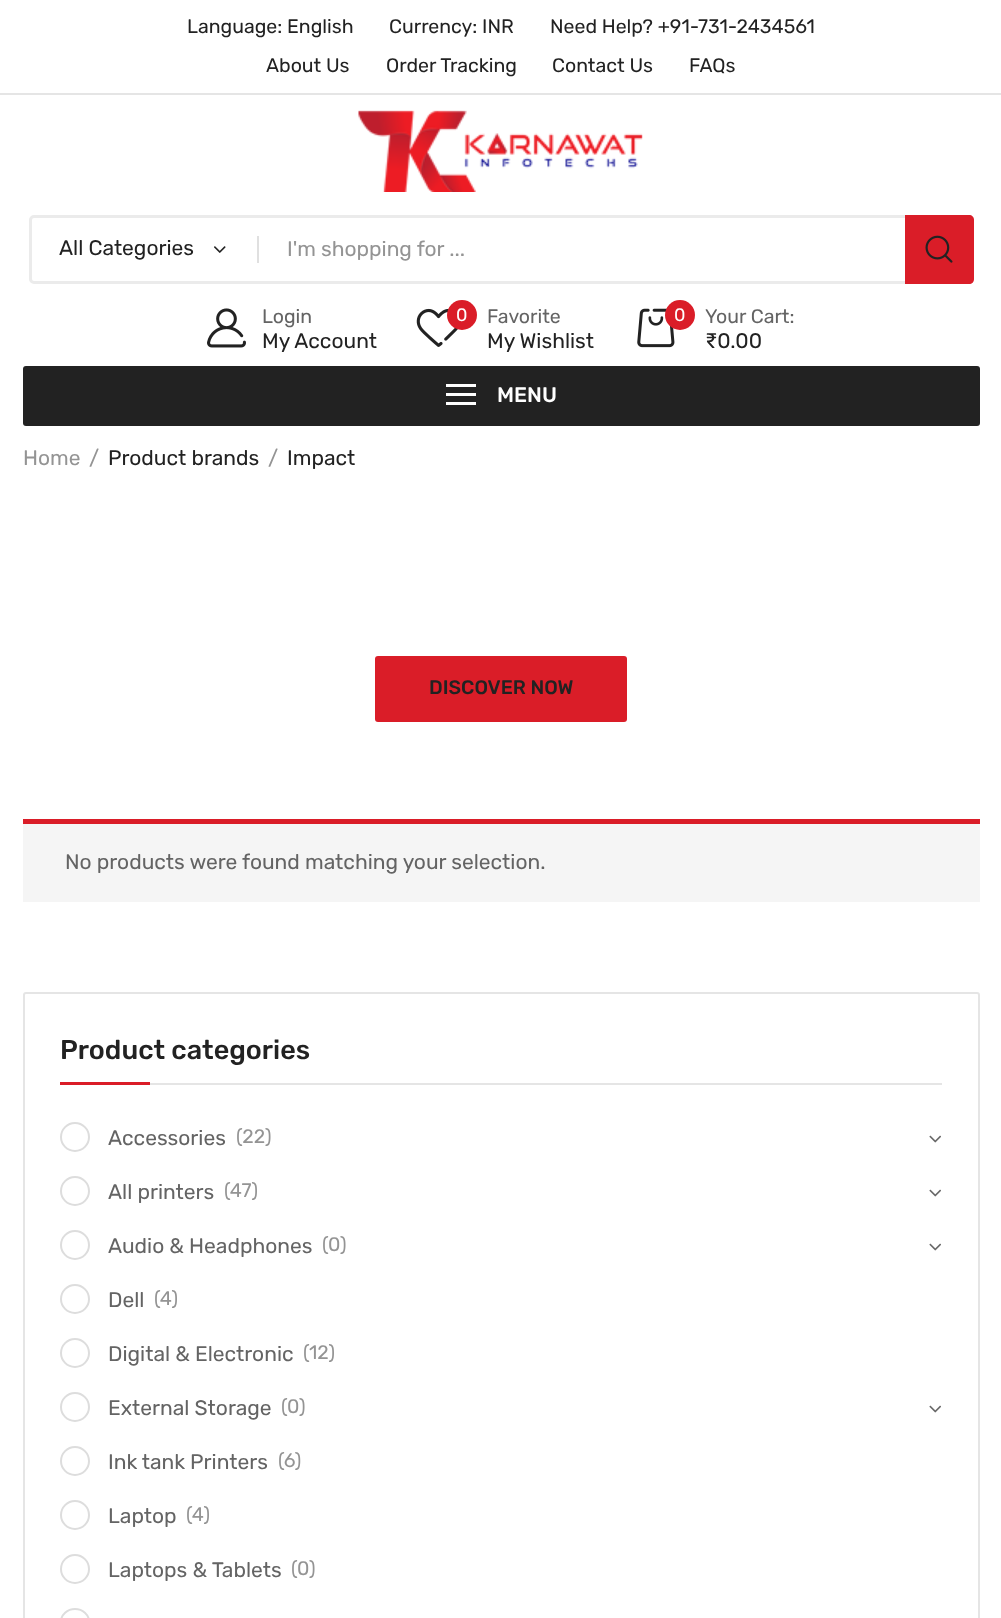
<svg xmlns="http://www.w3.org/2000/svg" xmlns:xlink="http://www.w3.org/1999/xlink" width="1001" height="1618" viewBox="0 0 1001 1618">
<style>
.cls-1{font:19.5px Rubik;fill:#222222}
.cls-2{font:21px Rubik;fill:#222222}
.cls-3{font:21px Rubik;fill:#949494}
.cls-4{font:19.5px Rubik;fill:#646464}
.cls-5{font:18px Rubik;fill:#ffffff}
.cls-6{font:500 21px Rubik;fill:#ffffff}
.cls-7{font:500 19.5px Rubik;fill:#222222}
.cls-8{font:21px Rubik;fill:#646464}
.cls-9{font:500 27px Rubik;fill:#222222}
.cls-10{font:19.5px Rubik;fill:#949494}
</style>
<rect width="100%" height="100%" fill="#ffffff"/>
<rect fill="#e5e5e5" x="0" y="93" width="1001" height="2"/>
<image xlink:href="image0.png" x="358" y="110" width="285" height="82"/>
<rect fill="#e0e0e0" x="257" y="236" width="2" height="27"/>
<rect fill="none" stroke="#ebebeb" stroke-width="3" x="30.5" y="216.5" width="942" height="66" rx="3.5"/>
<image xlink:href="image1.png" x="214" y="246" width="12" height="7"/>
<path fill="#da1d28" d="M905 215H969C972 215 974 217 974 220V279C974 282 972 284 969 284H905Z"/>
<image xlink:href="image2.png" x="925" y="235" width="28" height="28"/>
<image xlink:href="image3.png" x="207" y="308" width="39" height="40"/>
<image xlink:href="image4.png" x="416" y="308" width="42" height="39"/>
<circle fill="#da1d28" cx="462" cy="315" r="15"/>
<image xlink:href="image5.png" x="637" y="308" width="38" height="40"/>
<circle fill="#da1d28" cx="680" cy="315" r="15"/>
<rect fill="#222222" x="23" y="366" width="957" height="60" rx="3"/>
<rect fill="#ffffff" x="446" y="384" width="30" height="3"/>
<rect fill="#ffffff" x="446" y="393" width="30" height="3"/>
<rect fill="#ffffff" x="446" y="402" width="30" height="3"/>
<rect fill="#da1d28" x="375" y="656" width="252" height="66" rx="3"/>
<rect fill="#f5f5f5" x="23" y="824" width="957" height="78"/>
<rect fill="#da1d28" x="23" y="819" width="957" height="5"/>
<rect fill="none" stroke="#e5e5e5" stroke-width="2" x="24" y="993" width="955" height="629" rx="2"/>
<rect fill="#e5e5e5" x="150" y="1083" width="792" height="2"/>
<rect fill="#da1d28" x="60" y="1082" width="90" height="3"/>
<circle fill="none" stroke="#dddddd" stroke-width="2" cx="75" cy="1137" r="14"/>
<image xlink:href="image6.png" x="929" y="1135" width="12" height="8"/>
<circle fill="none" stroke="#dddddd" stroke-width="2" cx="75" cy="1191" r="14"/>
<image xlink:href="image6.png" x="929" y="1189" width="12" height="8"/>
<circle fill="none" stroke="#dddddd" stroke-width="2" cx="75" cy="1245" r="14"/>
<image xlink:href="image6.png" x="929" y="1243" width="12" height="8"/>
<circle fill="none" stroke="#dddddd" stroke-width="2" cx="75" cy="1299" r="14"/>
<circle fill="none" stroke="#dddddd" stroke-width="2" cx="75" cy="1353" r="14"/>
<circle fill="none" stroke="#dddddd" stroke-width="2" cx="75" cy="1407" r="14"/>
<image xlink:href="image6.png" x="929" y="1405" width="12" height="8"/>
<circle fill="none" stroke="#dddddd" stroke-width="2" cx="75" cy="1461" r="14"/>
<circle fill="none" stroke="#dddddd" stroke-width="2" cx="75" cy="1515" r="14"/>
<circle fill="none" stroke="#dddddd" stroke-width="2" cx="75" cy="1569" r="14"/>
<rect fill="none" stroke="#dddddd" stroke-width="2" x="61" y="1609" width="28" height="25" rx="14"/>
<text class="cls-1" x="187" y="33">Language: English</text>
<text class="cls-1" x="389" y="33">Currency: INR</text>
<text class="cls-1" x="550" y="33">Need Help? +91-731-2434561</text>
<text class="cls-1" x="266" y="72">About Us</text>
<text class="cls-1" x="386" y="72">Order Tracking</text>
<text class="cls-1" x="552" y="72">Contact Us</text>
<text class="cls-1" x="689" y="72">FAQs</text>
<text class="cls-2" x="59" y="255">All Categories</text>
<text class="cls-3" x="287" y="256">I'm shopping for ...</text>
<text class="cls-4" x="262" y="323">Login</text>
<text class="cls-2" x="262" y="348">My Account</text>
<text class="cls-5" x="456" y="321">0</text>
<text class="cls-4" x="487" y="323">Favorite</text>
<text class="cls-2" x="487" y="348">My Wishlist</text>
<text class="cls-5" x="674" y="321">0</text>
<text class="cls-4" x="705" y="323">Your Cart:</text>
<text class="cls-2" x="705" y="348">₹0.00</text>
<text class="cls-6" x="497" y="402">MENU</text>
<text class="cls-3" x="23" y="465">Home</text>
<text class="cls-3" x="89" y="465">/</text>
<text class="cls-2" x="108" y="465">Product brands</text>
<text class="cls-3" x="268" y="465">/</text>
<text class="cls-2" x="287" y="465">Impact</text>
<text class="cls-7" x="429" y="694">DISCOVER NOW</text>
<text class="cls-8" x="65" y="869">No products were found matching your selection.</text>
<text class="cls-9" x="60" y="1059">Product categories</text>
<text class="cls-8" x="108" y="1145">Accessories</text>
<text class="cls-10" x="236" y="1143">(22)</text>
<text class="cls-8" x="108" y="1199">All printers</text>
<text class="cls-10" x="224" y="1197">(47)</text>
<text class="cls-8" x="108" y="1253">Audio &amp; Headphones</text>
<text class="cls-10" x="322" y="1251">(0)</text>
<text class="cls-8" x="108" y="1307">Dell</text>
<text class="cls-10" x="154" y="1305">(4)</text>
<text class="cls-8" x="108" y="1361">Digital &amp; Electronic</text>
<text class="cls-10" x="303" y="1359">(12)</text>
<text class="cls-8" x="108" y="1415">External Storage</text>
<text class="cls-10" x="281" y="1413">(0)</text>
<text class="cls-8" x="108" y="1469">Ink tank Printers</text>
<text class="cls-10" x="278" y="1467">(6)</text>
<text class="cls-8" x="108" y="1523">Laptop</text>
<text class="cls-10" x="186" y="1521">(4)</text>
<text class="cls-8" x="108" y="1577">Laptops &amp; Tablets</text>
<text class="cls-10" x="291" y="1575">(0)</text>
</svg>
